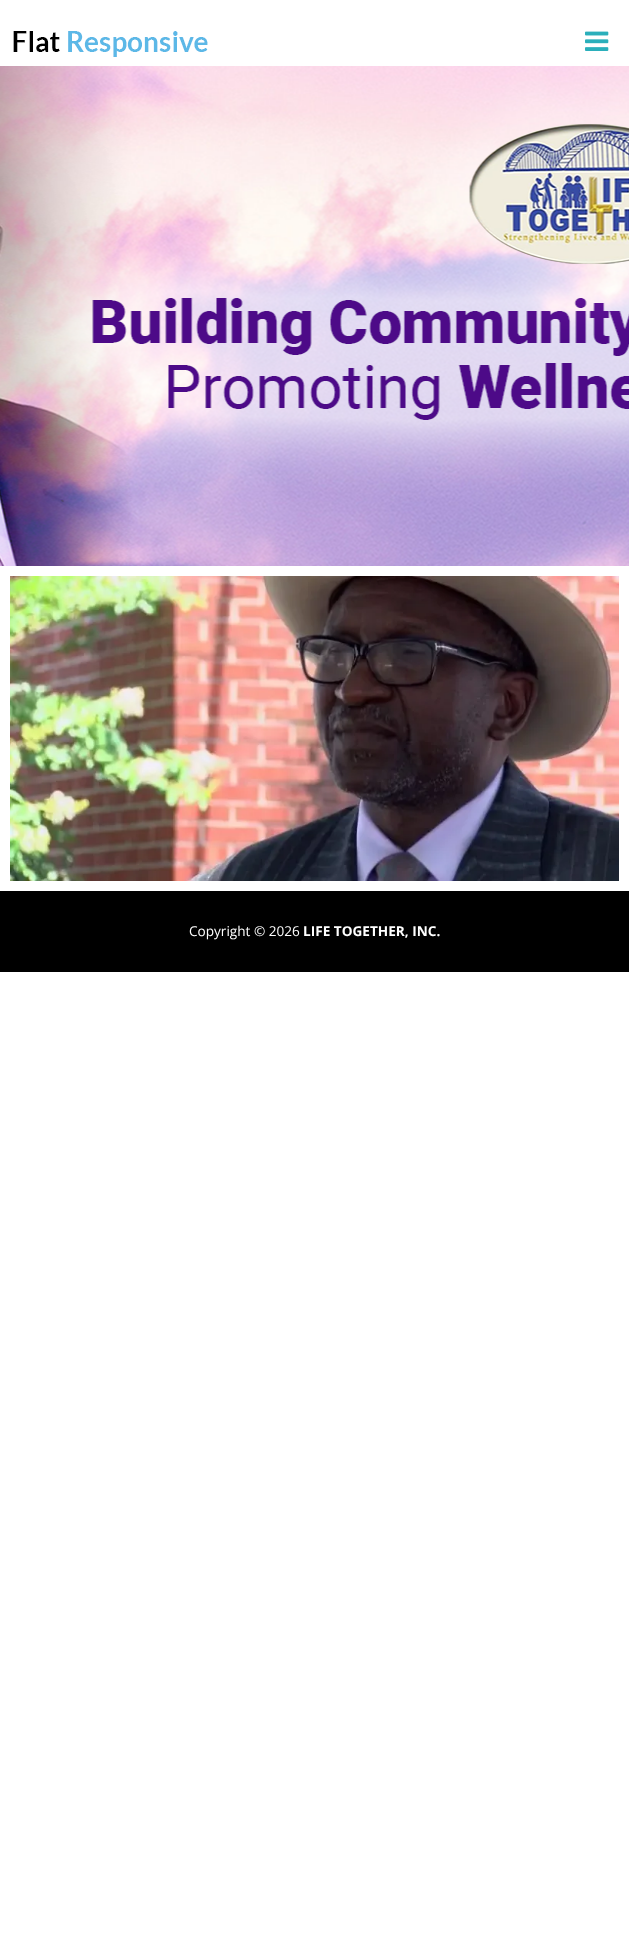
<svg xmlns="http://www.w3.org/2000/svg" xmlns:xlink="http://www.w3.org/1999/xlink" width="629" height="1960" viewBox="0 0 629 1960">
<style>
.cls-1{font:13.6px Open Sans;fill:#ffffff}
.cls-2{font:bold 13.6px Open Sans;fill:#ffffff}
</style>
<rect width="100%" height="100%" fill="#ffffff"/>
<image xlink:href="image0.png" x="13" y="31" width="195" height="26"/>
<image xlink:href="image1.png" x="585" y="31" width="24" height="20"/>
<image xlink:href="image2.png" x="0" y="66" width="629" height="500"/>
<image xlink:href="image3.png" x="10" y="576" width="609" height="305"/>
<rect fill="#000000" x="0" y="891" width="629" height="81"/>
<text class="cls-1" x="189" y="936">Copyright © 2026</text>
<text class="cls-2" x="303" y="936">LIFE TOGETHER, INC.</text>
</svg>
